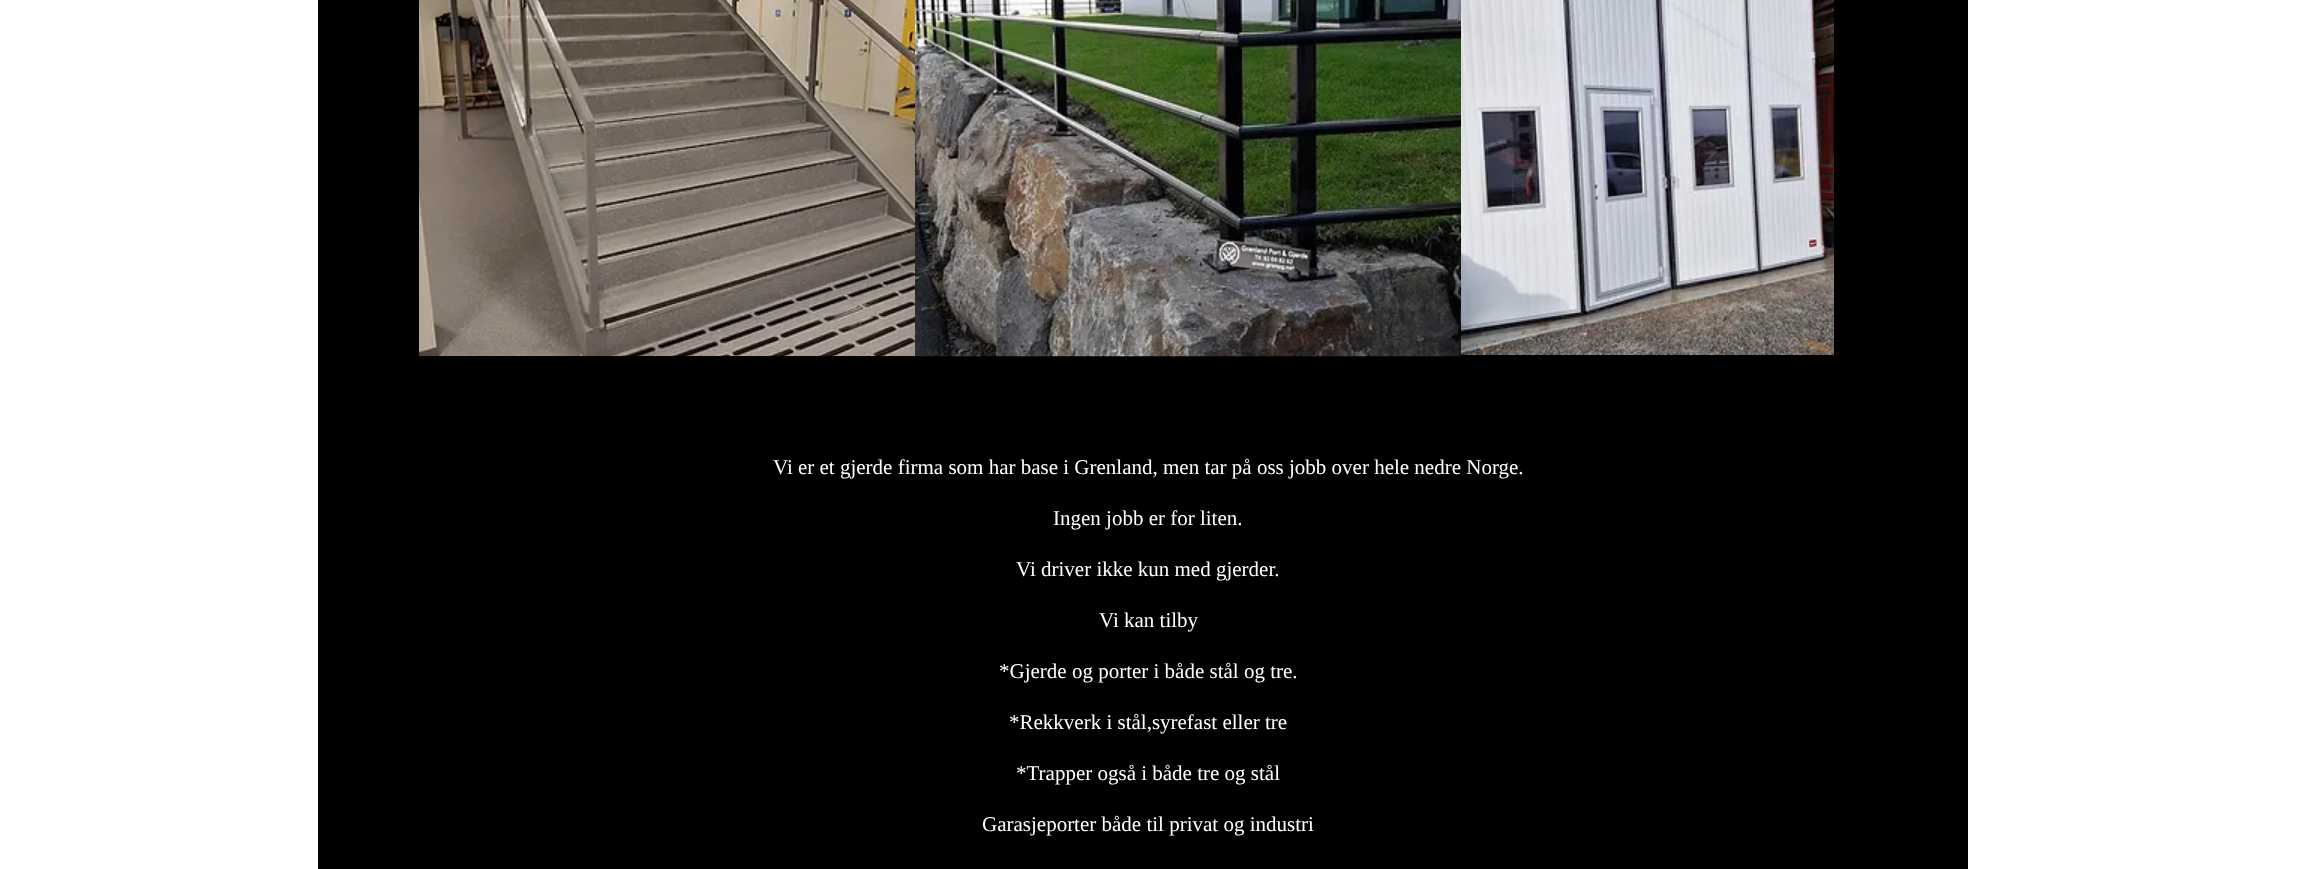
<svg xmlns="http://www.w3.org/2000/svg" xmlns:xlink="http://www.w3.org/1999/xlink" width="2306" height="869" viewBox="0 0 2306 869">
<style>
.cls-1{font:21px Liberation Serif;fill:#ffffff}
</style>
<rect width="100%" height="100%" fill="#ffffff"/>
<rect fill="#000000" x="318" y="0" width="1650" height="869"/>
<image xlink:href="image0.png" x="1461" y="0" width="374" height="355"/>
<image xlink:href="image1.png" x="419" y="0" width="496" height="357"/>
<image xlink:href="image2.png" x="915" y="0" width="546" height="357"/>
<text class="cls-1" x="773" y="474">Vi er et gjerde firma som har base i Grenland, men tar på oss jobb over hele nedre Norge.</text>
<text class="cls-1" x="1053" y="525">Ingen jobb er for liten.</text>
<text class="cls-1" x="1016" y="576">Vi driver ikke kun med gjerder.</text>
<text class="cls-1" x="1099" y="627">Vi kan tilby</text>
<text class="cls-1" x="999" y="678">*Gjerde og porter i både stål og tre.</text>
<text class="cls-1" x="1009" y="729">*Rekkverk i stål,syrefast eller tre</text>
<text class="cls-1" x="1016" y="780">*Trapper også i både tre og stål</text>
<text class="cls-1" x="982" y="831">Garasjeporter både til privat og industri</text>
</svg>
